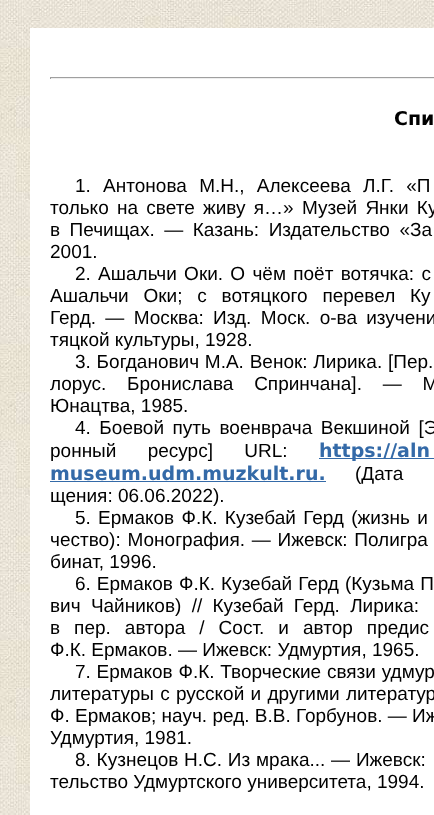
<svg xmlns="http://www.w3.org/2000/svg" xmlns:xlink="http://www.w3.org/1999/xlink" width="434" height="815" viewBox="0 0 434 815">
<style>
.cls-1{font:bold 19px DejaVu Sans;fill:#000000}
.cls-2{font:19px Liberation Sans;fill:#000000}
.cls-3{font:bold 19px DejaVu Sans;fill:#346aa8}
</style>
<rect width="100%" height="100%" fill="#ffffff"/>
<image xlink:href="image0.png" x="0" y="0" width="434" height="815"/>
<rect fill="#ffffff" x="30" y="28" width="404" height="787"/>
<rect fill="#9f9f9f" x="50" y="77" width="384" height="1"/>
<rect fill="#eeeeee" x="50" y="78" width="384" height="1"/>
<rect fill="#9f9f9f" x="50" y="77" width="1" height="2"/>
<rect fill="#346aa8" x="319" y="458" width="115" height="1"/>
<rect fill="#346aa8" x="50" y="481" width="276" height="1"/>
<text class="cls-1" x="394" y="125">Спи</text>
<text class="cls-2" x="75" y="192" word-spacing="7">1. Антонова М.Н., Алексеева Л.Г. «П</text>
<text class="cls-2"><tspan x="50" y="214" word-spacing="3">только на свете живу я…» Музей Янки Ку</tspan><tspan x="50" y="236" word-spacing="4.25">в Печищах. — Казань: Издательство «За</tspan><tspan x="50" y="258">2001.</tspan></text>
<text class="cls-2" x="75" y="280" word-spacing="2">2. Ашальчи Оки. О чём поёт вотячка: с</text>
<text class="cls-2"><tspan x="50" y="302" word-spacing="9.5">Ашальчи Оки; с вотяцкого перевел Ку</tspan><tspan x="50" y="324" word-spacing="4">Герд. — Москва: Изд. Моск. о-ва изучени</tspan><tspan x="50" y="346">тяцкой культуры, 1928.</tspan></text>
<text class="cls-2" x="75" y="368" word-spacing="0.5">3. Богданович М.А. Венок: Лирика. [Пер.</text>
<text class="cls-2"><tspan x="50" y="390" word-spacing="15.5">лорус. Бронислава Спринчана]. — М</tspan><tspan x="50" y="412">Юнацтва, 1985.</tspan></text>
<text class="cls-2" x="75" y="434" word-spacing="3.25">4. Боевой путь военврача Векшиной [Э</text>
<text class="cls-2" x="50" y="457" word-spacing="26">ронный ресурс] URL:</text>
<text class="cls-3" x="319" y="457">https://aln</text>
<text class="cls-3" x="50" y="480">museum.udm.muzkult.ru.</text>
<text class="cls-2" x="355" y="480" word-spacing="24">(Дата</text>
<text class="cls-2" x="50" y="502">щения: 06.06.2022).</text>
<text class="cls-2" x="75" y="524" word-spacing="2">5. Ермаков Ф.К. Кузебай Герд (жизнь и</text>
<text class="cls-2"><tspan x="50" y="546" word-spacing="1.5">чество): Монография. — Ижевск: Полигра</tspan><tspan x="50" y="568">бинат, 1996.</tspan></text>
<text class="cls-2" x="75" y="590" word-spacing="0.75">6. Ермаков Ф.К. Кузебай Герд (Кузьма П</text>
<text class="cls-2"><tspan x="50" y="612" word-spacing="5">вич Чайников) // Кузебай Герд. Лирика:</tspan><tspan x="50" y="634" word-spacing="8.75">в пер. автора / Сост. и автор предис</tspan><tspan x="50" y="656">Ф.К. Ермаков. — Ижевск: Удмуртия, 1965.</tspan></text>
<text class="cls-2" x="75" y="678" word-spacing="0.5">7. Ермаков Ф.К. Творческие связи удмур</text>
<text class="cls-2"><tspan x="50" y="700" word-spacing="1">литературы с русской и другими литератур</tspan><tspan x="50" y="722">Ф. Ермаков; науч. ред. В.В. Горбунов. — Иж</tspan><tspan x="50" y="744">Удмуртия, 1981.</tspan></text>
<text class="cls-2" x="75" y="766" word-spacing="0.5">8. Кузнецов Н.С. Из мрака... — Ижевск:</text>
<text class="cls-2" x="50" y="788">тельство Удмуртского университета, 1994.</text>
</svg>
